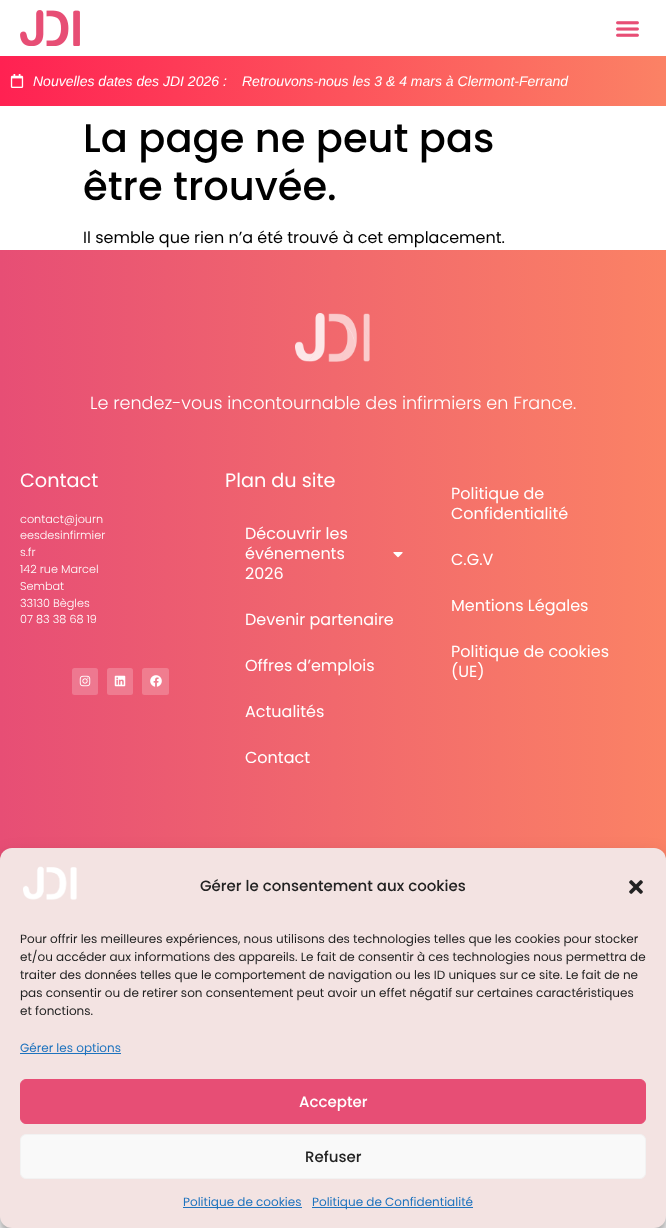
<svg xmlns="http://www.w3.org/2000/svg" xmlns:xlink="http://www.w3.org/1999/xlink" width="666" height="1228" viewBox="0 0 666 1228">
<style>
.cls-1{font:italic 14px Liberation Sans;fill:#ffffff}
.cls-2{font:500 40px Poppins;fill:#000000}
.cls-3{font:16px Poppins;fill:#000000}
.cls-4{font:300 17.6px Poppins;fill:#ffffff}
.cls-5{font:19.25px Poppins;fill:#ffffff}
.cls-6{font:300 11.25px Poppins;fill:#ffffff}
.cls-7{font:16px Poppins;fill:#ffffff}
.cls-8{font:500 15px Poppins;fill:#222222}
.cls-9{font:12px Poppins;fill:#222222}
.cls-10{font:12px Poppins;fill:#1e73be}
.cls-11{font:500 15px Poppins;fill:#ffffff}
</style>
<defs>
<linearGradient id="g1" gradientUnits="userSpaceOnUse" x1="0" y1="81" x2="666" y2="81"><stop offset="0" stop-color="#ff2152"/><stop offset="1" stop-color="#fb8265"/></linearGradient>
<linearGradient id="g2" gradientUnits="userSpaceOnUse" x1="666" y1="533" x2="0" y2="533"><stop offset="0" stop-color="#fb8265"/><stop offset="1" stop-color="#e74e75"/></linearGradient>
<linearGradient id="g3" gradientUnits="userSpaceOnUse" x1="666" y1="868" x2="0" y2="868"><stop offset="0" stop-color="#fb8265"/><stop offset="1" stop-color="#e74e75"/></linearGradient>
</defs>
<rect width="100%" height="100%" fill="#ffffff"/>
<image xlink:href="image0.png" x="20" y="10" width="60" height="36"/>
<image xlink:href="image1.png" x="616" y="21" width="23" height="16"/>
<rect fill="url(#g1)" x="0" y="56" width="666" height="50"/>
<image xlink:href="image2.png" x="10" y="74" width="14" height="14"/>
<rect fill="url(#g2)" x="0" y="250" width="666" height="566"/>
<image xlink:href="image3.png" x="295" y="313" width="75" height="49"/>
<rect fill="#ee7890" x="72" y="668" width="26" height="27" rx="2.5"/>
<image xlink:href="image4.png" x="79" y="675" width="12" height="12"/>
<rect fill="#ef7b90" x="107" y="668" width="26" height="27" rx="2.5"/>
<image xlink:href="image5.png" x="114" y="675" width="12" height="12"/>
<rect fill="#f07d8f" x="142" y="668" width="27" height="27" rx="2.5"/>
<image xlink:href="image6.png" x="150" y="675" width="12" height="12"/>
<image xlink:href="image7.png" x="393" y="552" width="10" height="6"/>
<rect fill="url(#g3)" x="0" y="816" width="666" height="44"/>
<rect fill="#000000" fill-opacity="0.23" filter="blur(3px)" x="0" y="854" width="666" height="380" rx="12"/>
<rect fill="#000000" fill-opacity="0.19" filter="blur(10px)" x="0" y="858" width="666" height="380" rx="12"/>
<rect fill="#f3e3e2" x="0" y="848" width="666" height="380" rx="12"/>
<image xlink:href="image8.png" x="23" y="866" width="54" height="34"/>
<image xlink:href="image9.png" x="629" y="880" width="14" height="14"/>
<rect fill="#1e73be" x="20" y="1053" width="101" height="1"/>
<rect fill="#e74e75" stroke="#e74e75" x="20.5" y="1079.5" width="625" height="44" rx="5.5"/>
<rect fill="#f9f9f9" stroke="#f2f2f2" x="20.5" y="1134.5" width="625" height="44" rx="5.5"/>
<rect fill="#1e73be" x="183" y="1207" width="119" height="1"/>
<rect fill="#1e73be" x="312" y="1207" width="161" height="1"/>
<text class="cls-1" x="33" y="86">Nouvelles dates des JDI 2026 :</text>
<text class="cls-1" x="242" y="86">Retrouvons-nous les 3 &amp; 4 mars à Clermont-Ferrand</text>
<text class="cls-2"><tspan x="83" y="152">La page ne peut pas</tspan><tspan x="83" y="200">être trouvée.</tspan></text>
<text class="cls-3" x="83" y="243">Il semble que rien n’a été trouvé à cet emplacement.</text>
<text class="cls-4" x="90" y="409">Le rendez-vous incontournable des infirmiers en France.</text>
<text class="cls-5" x="20" y="487">Contact</text>
<text class="cls-6"><tspan x="20" y="523">contact@journ</tspan><tspan x="20" y="539">eesdesinfirmier</tspan><tspan x="20" y="556">s.fr</tspan><tspan x="20" y="573">142 rue Marcel</tspan><tspan x="20" y="590">Sembat</tspan><tspan x="20" y="607">33130 Bègles</tspan><tspan x="20" y="623">07 83 38 68 19</tspan></text>
<text class="cls-5" x="225" y="487">Plan du site</text>
<text class="cls-7"><tspan x="245" y="539">Découvrir les</tspan><tspan x="245" y="559">événements</tspan><tspan x="245" y="579">2026</tspan></text>
<text class="cls-7" x="245" y="625">Devenir partenaire</text>
<text class="cls-7" x="245" y="671">Offres d’emplois</text>
<text class="cls-7" x="245" y="717">Actualités</text>
<text class="cls-7" x="245" y="763">Contact</text>
<text class="cls-7"><tspan x="451" y="499">Politique de</tspan><tspan x="451" y="519">Confidentialité</tspan></text>
<text class="cls-7" x="451" y="565">C.G.V</text>
<text class="cls-7" x="451" y="611">Mentions Légales</text>
<text class="cls-7"><tspan x="451" y="657">Politique de cookies</tspan><tspan x="451" y="677">(UE)</tspan></text>
<text class="cls-8" x="200" y="891">Gérer le consentement aux cookies</text>
<text class="cls-9"><tspan x="20" y="943">Pour offrir les meilleures expériences, nous utilisons des technologies telles que les cookies pour stocker</tspan><tspan x="20" y="961">et/ou accéder aux informations des appareils. Le fait de consentir à ces technologies nous permettra de</tspan><tspan x="20" y="979">traiter des données telles que le comportement de navigation ou les ID uniques sur ce site. Le fait de ne</tspan><tspan x="20" y="997">pas consentir ou de retirer son consentement peut avoir un effet négatif sur certaines caractéristiques</tspan><tspan x="20" y="1015">et fonctions.</tspan></text>
<text class="cls-10" x="20" y="1052">Gérer les options</text>
<text class="cls-11" x="299" y="1107">Accepter</text>
<text class="cls-8" x="305" y="1162">Refuser</text>
<text class="cls-10" x="183" y="1206">Politique de cookies</text>
<text class="cls-10" x="312" y="1206">Politique de Confidentialité</text>
</svg>
